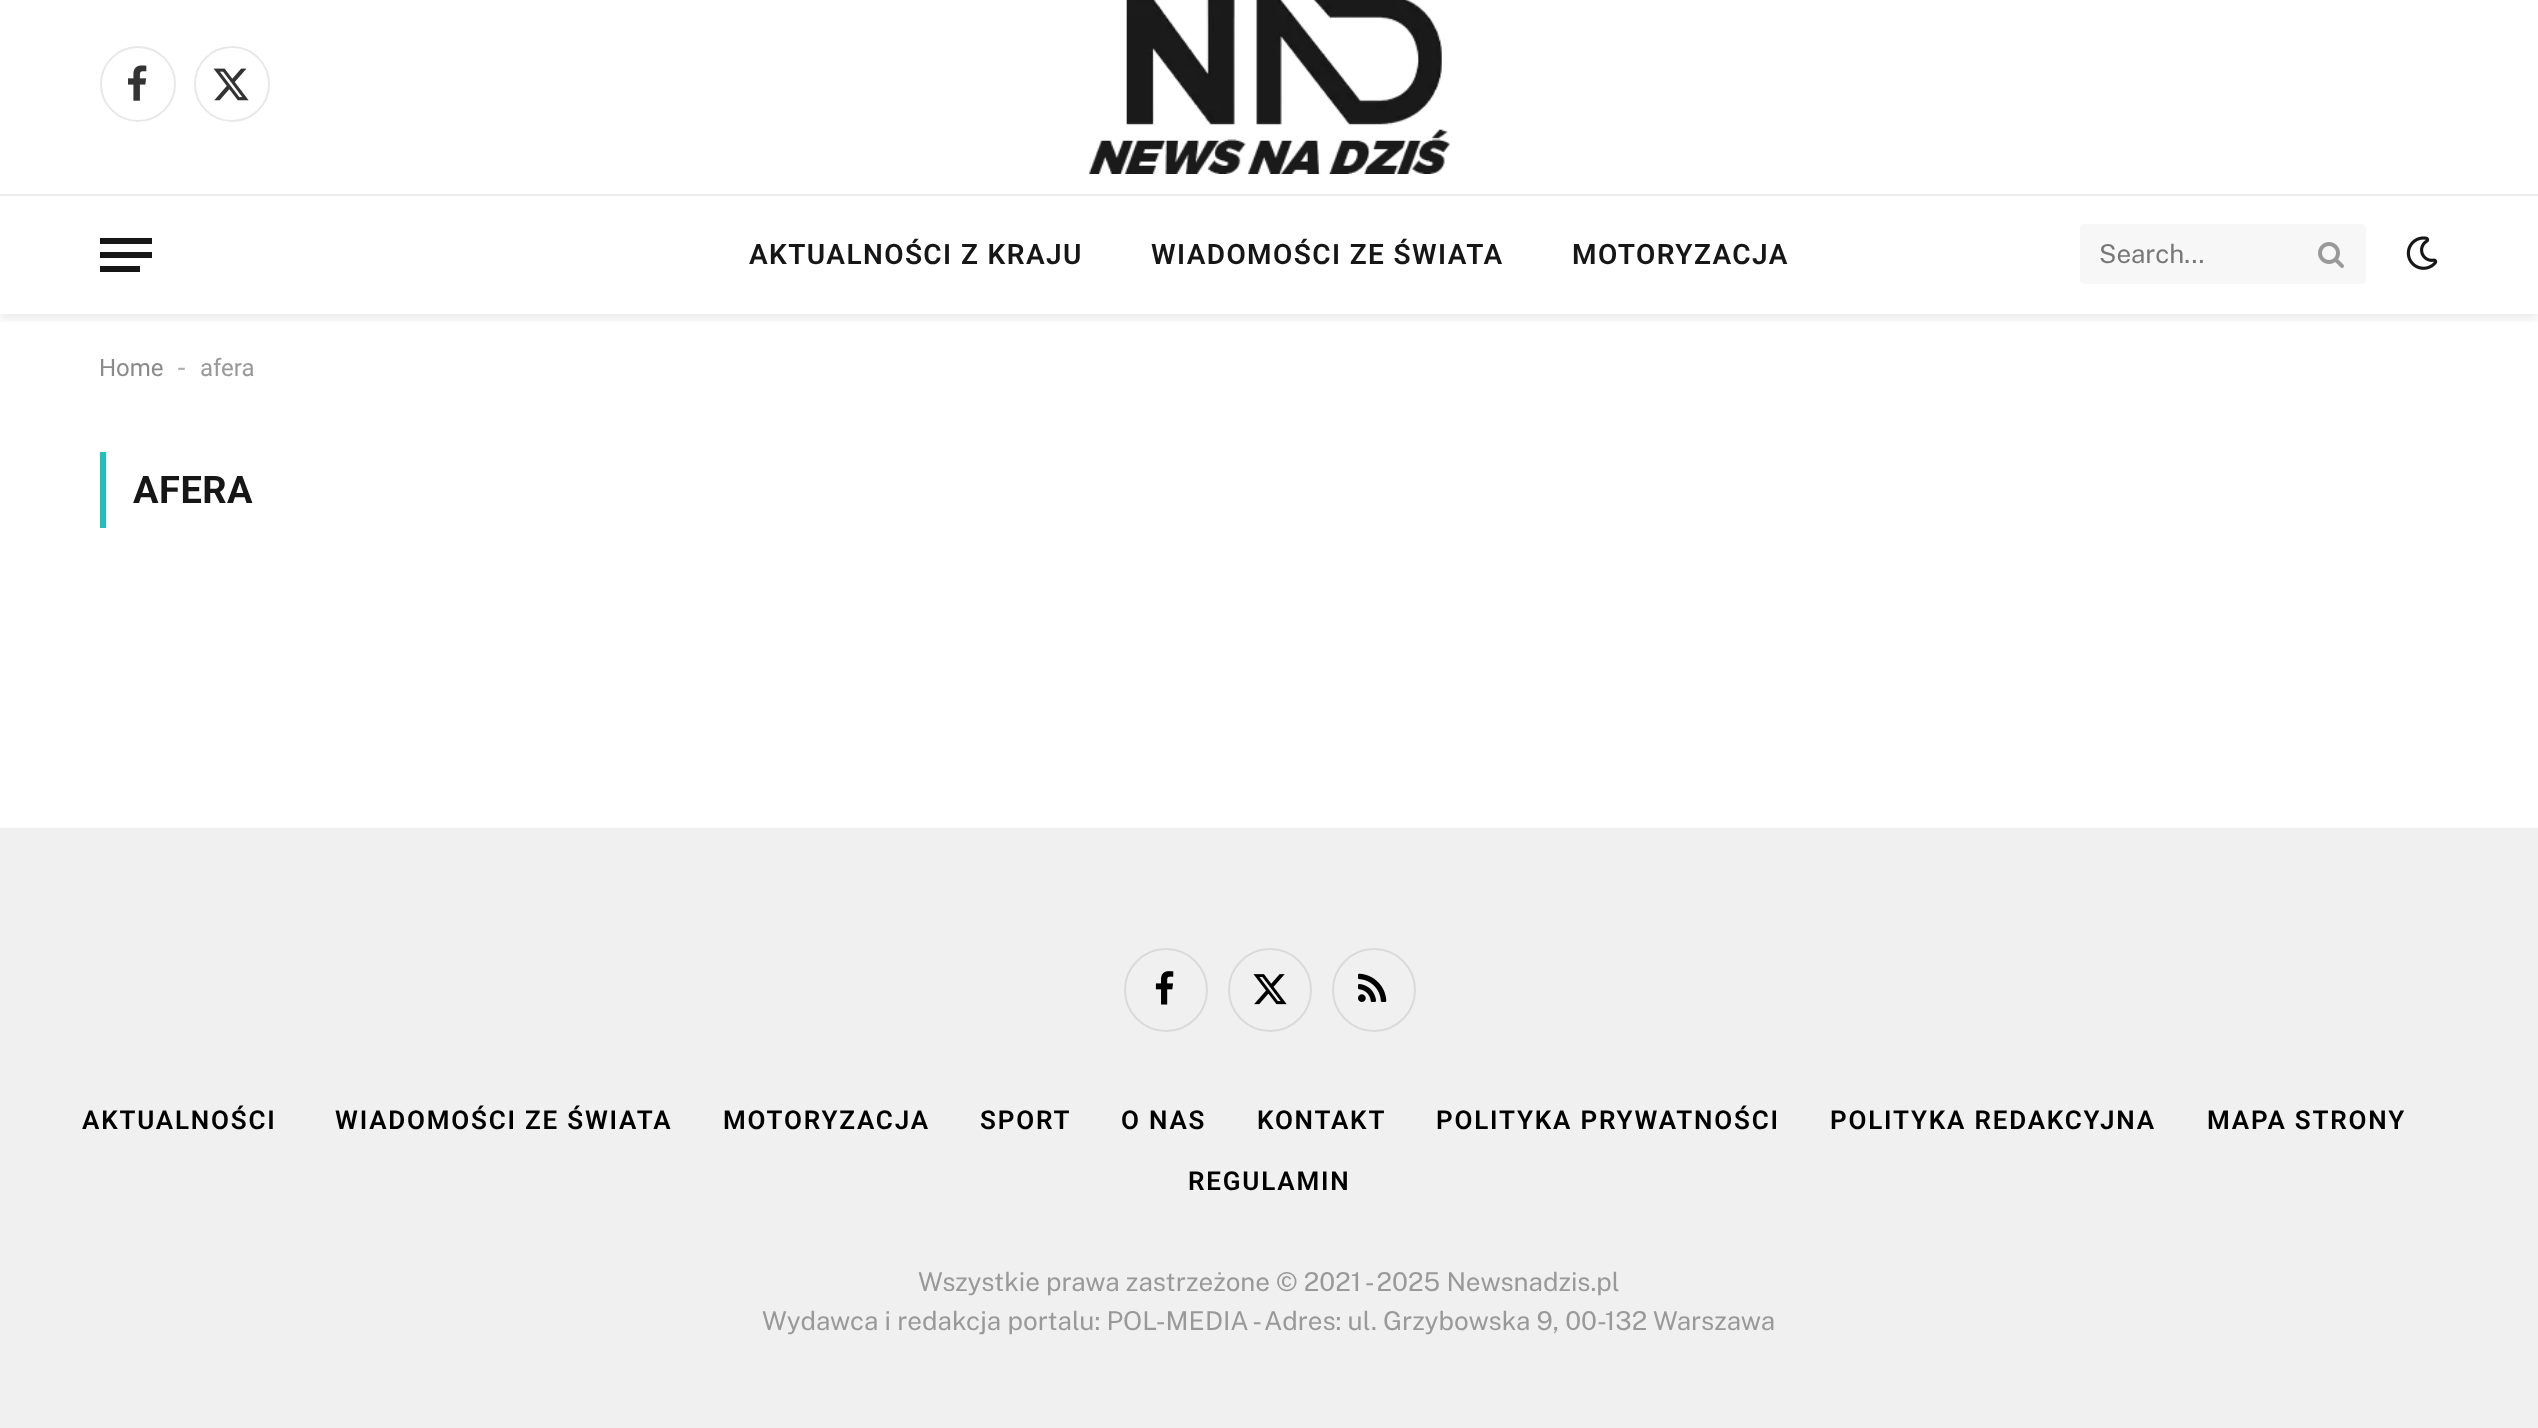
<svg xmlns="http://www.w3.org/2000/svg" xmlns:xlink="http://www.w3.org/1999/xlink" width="2538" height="1428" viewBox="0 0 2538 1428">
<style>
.cls-1{font:600 28px Roboto;letter-spacing:1.4px;fill:#161616}
.cls-2{font:26px Public Sans;fill:#777777}
.cls-3{font:24px Roboto;fill:#8a8a8a}
.cls-4{font:27px Liberation Sans;fill:#adadad}
.cls-5{font:24px Roboto;fill:#999999}
.cls-6{font:bold 38px Roboto;letter-spacing:0.5px;fill:#161616}
.cls-7{font:600 26px Roboto;letter-spacing:1.8px;fill:#000000}
.cls-8{font:26px Public Sans;fill:#999999}
</style>
<defs>
<clipPath id="clip1"><rect x="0" y="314" width="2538" height="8"/></clipPath>
</defs>
<rect width="100%" height="100%" fill="#ffffff"/>
<g clip-path="url(#clip1)">
<rect fill="#000000" fill-opacity="0.07" filter="blur(4px)" x="0" y="-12" width="2538" height="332"/>
</g>
<circle fill="none" stroke="#e8e8e8" stroke-width="2" cx="138" cy="84" r="37"/>
<image xlink:href="image0.png" x="128" y="65" width="19" height="36"/>
<circle fill="none" stroke="#e8e8e8" stroke-width="2" cx="232" cy="84" r="37"/>
<image xlink:href="image1.png" x="213" y="68" width="36" height="33"/>
<image xlink:href="image2.png" x="1088" y="0" width="362" height="174"/>
<rect fill="#ededed" x="0" y="194" width="2538" height="2"/>
<rect fill="#161616" x="100" y="266" width="40" height="6"/>
<rect fill="#161616" x="100" y="238" width="52" height="6"/>
<rect fill="#161616" x="100" y="252" width="52" height="6"/>
<rect fill="#f7f7f7" x="2080" y="224" width="286" height="60" rx="4"/>
<image xlink:href="image3.png" x="2318" y="242" width="26" height="26"/>
<image xlink:href="image4.png" x="2406" y="236" width="32" height="34"/>
<rect fill="#20c1bd" x="100" y="452" width="6" height="76"/>
<rect fill="#f0f0f0" x="0" y="828" width="2538" height="600"/>
<circle fill="none" stroke="#dadada" stroke-width="2" cx="1166" cy="990" r="41"/>
<image xlink:href="image5.png" x="1155" y="971" width="19" height="34"/>
<circle fill="none" stroke="#dadada" stroke-width="2" cx="1270" cy="990" r="41"/>
<image xlink:href="image6.png" x="1253" y="974" width="34" height="31"/>
<circle fill="none" stroke="#dadada" stroke-width="2" cx="1374" cy="990" r="41"/>
<image xlink:href="image7.png" x="1358" y="973" width="29" height="29"/>
<text class="cls-1" x="749" y="264">AKTUALNOŚCI Z KRAJU</text>
<text class="cls-1" x="1151" y="264">WIADOMOŚCI ZE ŚWIATA</text>
<text class="cls-1" x="1572" y="264">MOTORYZACJA</text>
<text class="cls-2" x="2099" y="263">Search...</text>
<text class="cls-3" x="99" y="376">Home</text>
<text class="cls-4" x="177" y="376">-</text>
<text class="cls-5" x="200" y="376">afera</text>
<text class="cls-6" x="133" y="503">AFERA</text>
<text class="cls-7" x="82" y="1129">AKTUALNOŚCI</text>
<text class="cls-7" x="335" y="1129">WIADOMOŚCI ZE ŚWIATA</text>
<text class="cls-7" x="723" y="1129">MOTORYZACJA</text>
<text class="cls-7" x="980" y="1129">SPORT</text>
<text class="cls-7" x="1121" y="1129">O NAS</text>
<text class="cls-7" x="1257" y="1129">KONTAKT</text>
<text class="cls-7" x="1436" y="1129">POLITYKA PRYWATNOŚCI</text>
<text class="cls-7" x="1830" y="1129">POLITYKA REDAKCYJNA</text>
<text class="cls-7" x="2207" y="1129">MAPA STRONY</text>
<text class="cls-7" x="1188" y="1190">REGULAMIN</text>
<text class="cls-8" x="918" y="1291">Wszystkie prawa zastrzeżone © 2021 - 2025 Newsnadzis.pl</text>
<text class="cls-8" x="762" y="1330">Wydawca i redakcja portalu: POL-MEDIA - Adres: ul. Grzybowska 9, 00-132 Warszawa</text>
</svg>
